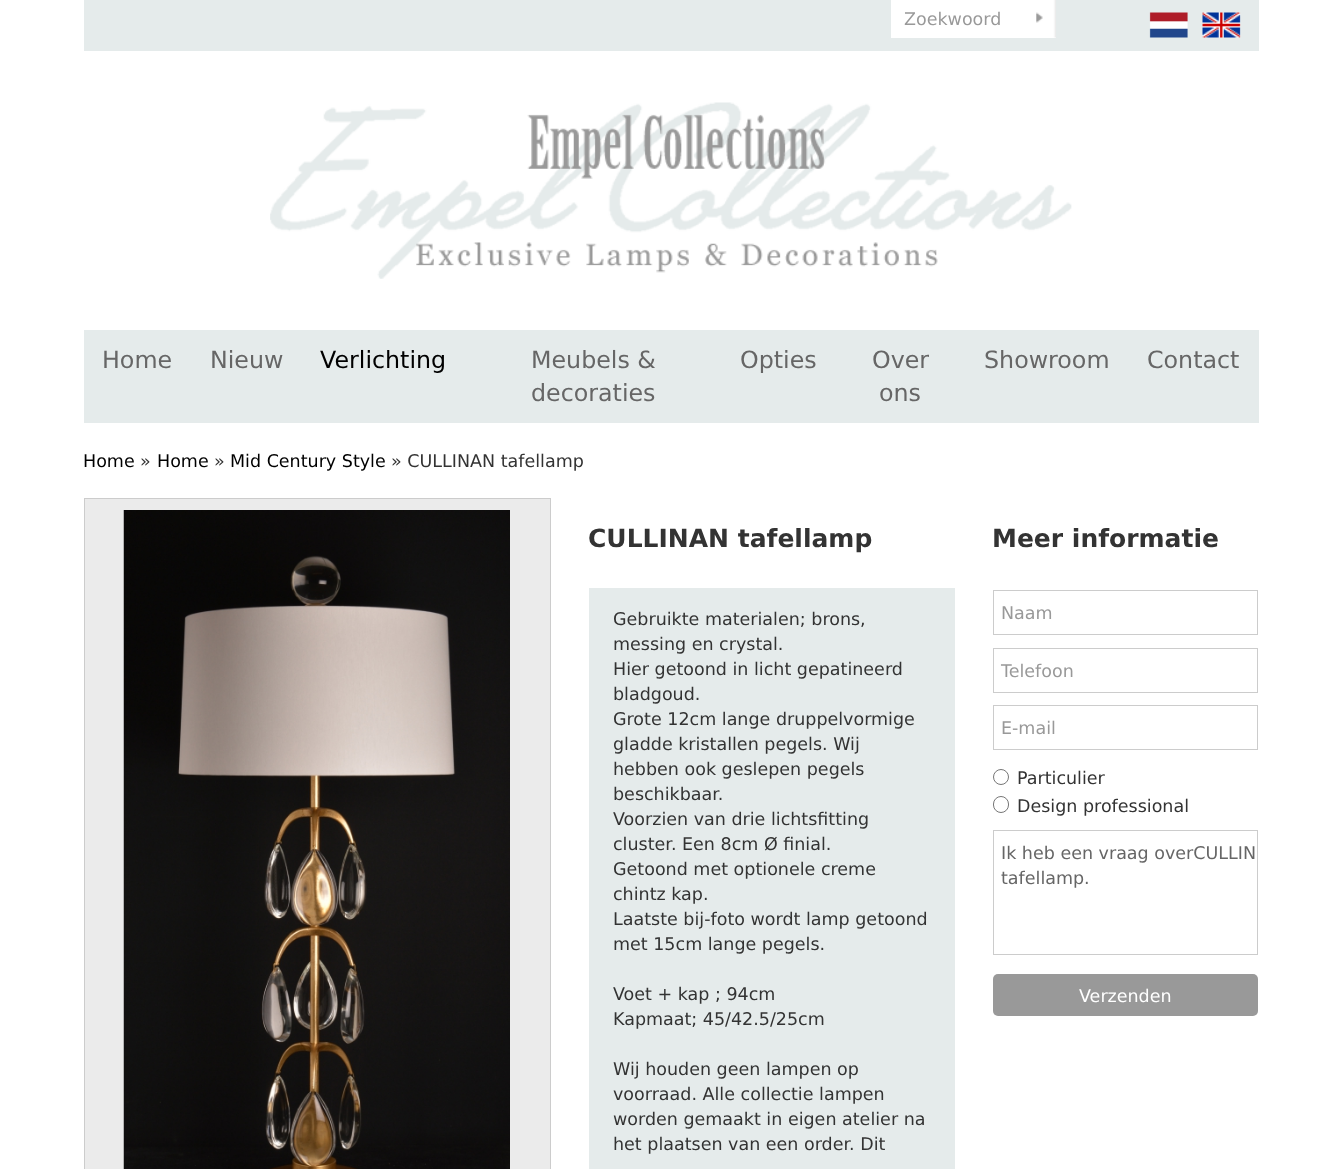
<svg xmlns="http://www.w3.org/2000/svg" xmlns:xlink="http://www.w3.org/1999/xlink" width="1341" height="1169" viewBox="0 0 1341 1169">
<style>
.cls-1{font:17.5px DejaVu Sans;fill:#999999}
.cls-2{font:23.75px DejaVu Sans;fill:#666666}
.cls-3{font:23.75px DejaVu Sans;fill:#000000}
.cls-4{font:17.5px DejaVu Sans;fill:#000000}
.cls-5{font:17.5px DejaVu Sans;fill:#333333}
.cls-6{font:bold 25px DejaVu Sans;fill:#333333}
.cls-7{font:17.5px DejaVu Sans;fill:#666666}
.cls-8{font:17.5px DejaVu Sans;fill:#ffffff}
</style>
<rect width="100%" height="100%" fill="#ffffff"/>
<rect fill="#e5ebeb" x="84" y="0" width="1175" height="51"/>
<rect fill="#ffffff" x="891" y="0" width="165" height="38"/>
<image xlink:href="image0.png" x="1036" y="0" width="20" height="38"/>
<image xlink:href="image1.png" x="1149" y="12" width="39" height="26"/>
<image xlink:href="image2.png" x="1202" y="12" width="39" height="26"/>
<image xlink:href="image3.png" x="270" y="102" width="802" height="177"/>
<rect fill="#e5ebeb" x="84" y="330" width="1175" height="93"/>
<rect fill="#ebebeb" stroke="#cccccc" x="84.5" y="498.5" width="466" height="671"/>
<image xlink:href="image4.png" x="123" y="510" width="387" height="659"/>
<rect fill="#e5ebeb" x="589" y="588" width="366" height="581"/>
<rect fill="none" stroke="#cccccc" x="993.5" y="590.5" width="264" height="44"/>
<rect fill="none" stroke="#cccccc" x="993.5" y="648.5" width="264" height="44"/>
<rect fill="none" stroke="#cccccc" x="993.5" y="705.5" width="264" height="44"/>
<circle fill="none" stroke="#767676" cx="1001" cy="777" r="7.5"/>
<rect fill="none" stroke="#767676" x="993.5" y="796.5" width="15" height="16" rx="7.5"/>
<rect fill="none" stroke="#cccccc" x="993.5" y="830.5" width="264" height="124"/>
<rect fill="#999999" x="993" y="974" width="265" height="42" rx="5"/>
<text class="cls-1" x="904" y="25">Zoekwoord</text>
<text class="cls-2" x="102" y="368">Home</text>
<text class="cls-2" x="210" y="368">Nieuw</text>
<text class="cls-3" x="320" y="368">Verlichting</text>
<text class="cls-2"><tspan x="531" y="368">Meubels &amp;</tspan><tspan x="531" y="401">decoraties</tspan></text>
<text class="cls-2" x="740" y="368">Opties</text>
<text class="cls-2" x="872" y="368">Over</text>
<text class="cls-2" x="879" y="401">ons</text>
<text class="cls-2" x="984" y="368">Showroom</text>
<text class="cls-2" x="1147" y="368">Contact</text>
<text class="cls-4" x="83" y="467">Home</text>
<text class="cls-5" x="140" y="467">»</text>
<text class="cls-4" x="157" y="467">Home</text>
<text class="cls-5" x="214" y="467">»</text>
<text class="cls-4" x="230" y="467">Mid Century Style</text>
<text class="cls-5" x="391" y="467">» CULLINAN tafellamp</text>
<text class="cls-6" x="588" y="547">CULLINAN tafellamp</text>
<text class="cls-5"><tspan x="613" y="625">Gebruikte materialen; brons,</tspan><tspan x="613" y="650">messing en crystal.</tspan><tspan x="613" y="675">Hier getoond in licht gepatineerd</tspan><tspan x="613" y="700">bladgoud.</tspan><tspan x="613" y="725">Grote 12cm lange druppelvormige</tspan><tspan x="613" y="750">gladde kristallen pegels. Wij</tspan><tspan x="613" y="775">hebben ook geslepen pegels</tspan><tspan x="613" y="800">beschikbaar.</tspan><tspan x="613" y="825">Voorzien van drie lichtsfitting</tspan><tspan x="613" y="850">cluster. Een 8cm Ø finial.</tspan><tspan x="613" y="875">Getoond met optionele creme</tspan><tspan x="613" y="900">chintz kap.</tspan><tspan x="613" y="925">Laatste bij-foto wordt lamp getoond</tspan><tspan x="613" y="950">met 15cm lange pegels.</tspan></text>
<text class="cls-5"><tspan x="613" y="1000">Voet + kap ; 94cm</tspan><tspan x="613" y="1025">Kapmaat; 45/42.5/25cm</tspan></text>
<text class="cls-5"><tspan x="613" y="1075">Wij houden geen lampen op</tspan><tspan x="613" y="1100">voorraad. Alle collectie lampen</tspan><tspan x="613" y="1125">worden gemaakt in eigen atelier na</tspan><tspan x="613" y="1150">het plaatsen van een order. Dit</tspan></text>
<text class="cls-6" x="992" y="547">Meer informatie</text>
<text class="cls-1" x="1001" y="619">Naam</text>
<text class="cls-1" x="1001" y="677">Telefoon</text>
<text class="cls-1" x="1001" y="734">E-mail</text>
<text class="cls-5"><tspan x="1017" y="784">Particulier</tspan><tspan x="1017" y="812">Design professional</tspan></text>
<text class="cls-7"><tspan x="1001" y="859">Ik heb een vraag overCULLIN</tspan><tspan x="1001" y="884">tafellamp.</tspan></text>
<text class="cls-8" x="1079" y="1002">Verzenden</text>
</svg>
